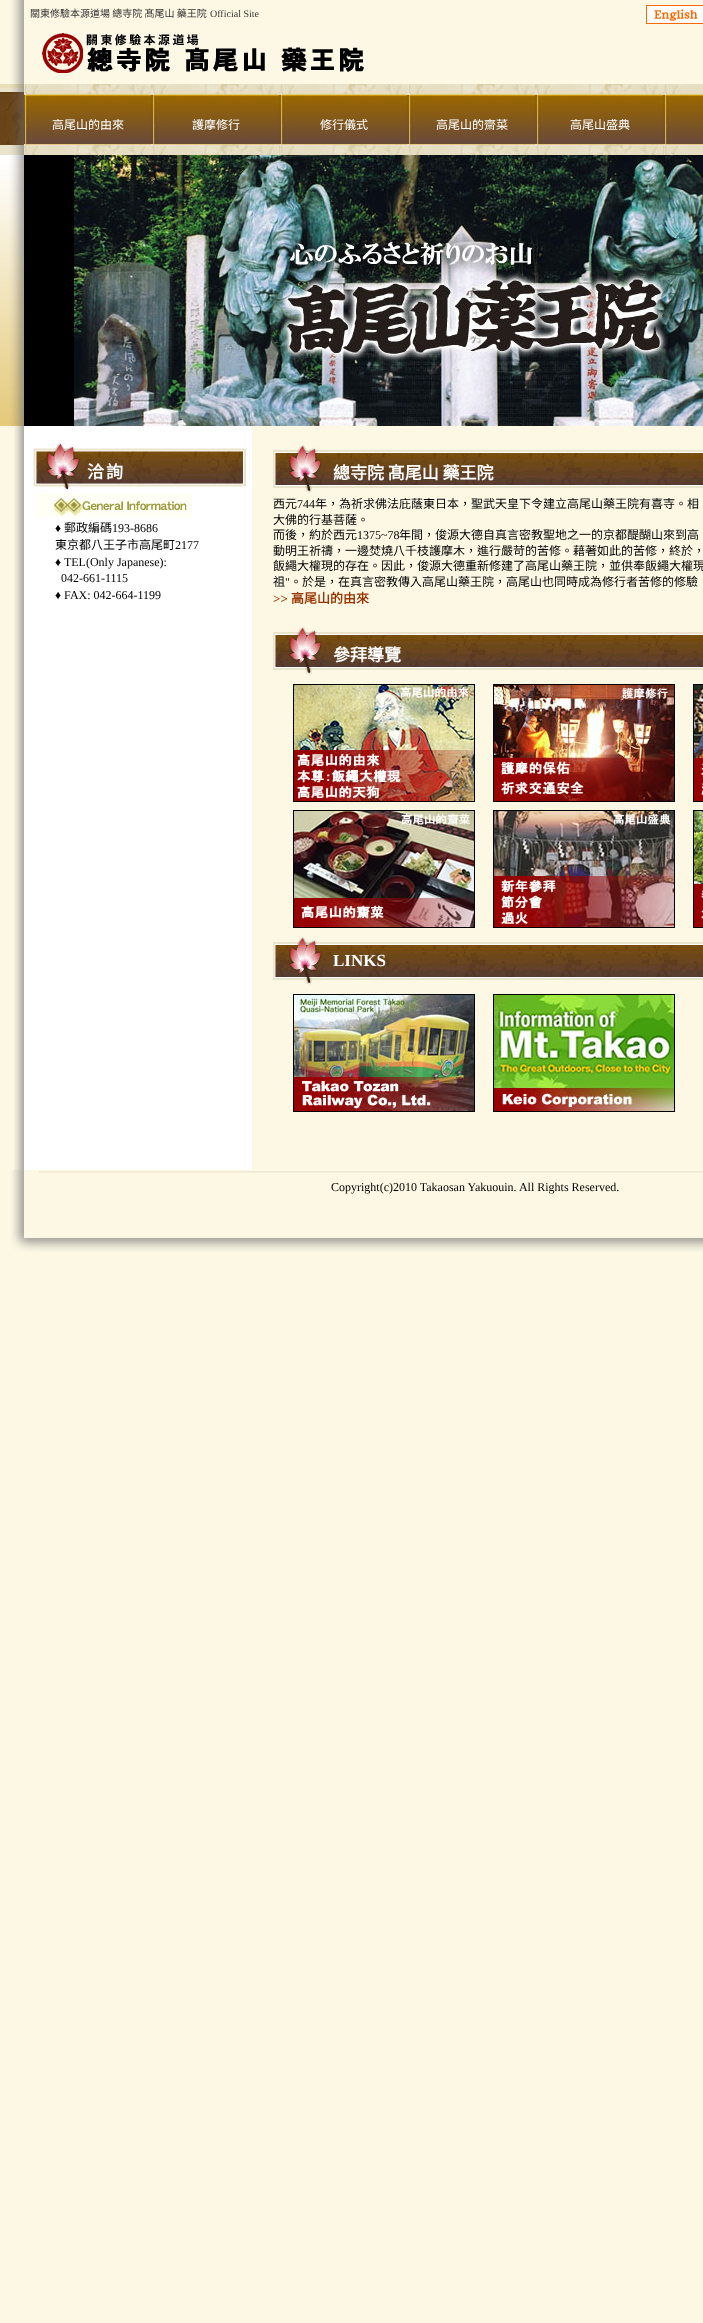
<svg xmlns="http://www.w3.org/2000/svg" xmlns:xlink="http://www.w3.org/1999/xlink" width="703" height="2323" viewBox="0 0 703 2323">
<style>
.cls-1{font:10px Noto Sans CJK TC;fill:#333333}
.cls-2{font:10px Liberation Serif;fill:#333333}
.cls-3{font:12px Noto Sans CJK TC;fill:#ffffff}
.cls-4{font:bold 17px Noto Sans CJK TC;letter-spacing:2px;fill:#ffffff}
.cls-5{font:12px Liberation Serif;fill:#000000}
.cls-6{font:12px Noto Sans CJK TC;fill:#000000}
.cls-7{font:bold 17px Noto Sans CJK TC;fill:#ffffff}
.cls-8{font:bold 13px Liberation Serif;fill:#993300}
.cls-9{font:bold 13px Noto Sans CJK TC;fill:#993300}
.cls-10{font:bold 17px Liberation Serif;fill:#ffffff}
</style>
<rect width="100%" height="100%" fill="#fdf8e4"/>
<image xlink:href="image0.png" x="0" y="0" width="703" height="84"/>
<image xlink:href="image1.png" x="646" y="5" width="57" height="19"/>
<image xlink:href="image2.png" x="42" y="33" width="322" height="40"/>
<image xlink:href="image3.png" x="0" y="84" width="665" height="71"/>
<image xlink:href="image4.png" x="25" y="84" width="126" height="71"/>
<image xlink:href="image4.png" x="153" y="84" width="126" height="71"/>
<image xlink:href="image4.png" x="281" y="84" width="126" height="71"/>
<image xlink:href="image4.png" x="409" y="84" width="126" height="71"/>
<image xlink:href="image4.png" x="537" y="84" width="126" height="71"/>
<image xlink:href="image5.png" x="665" y="84" width="38" height="71"/>
<image xlink:href="image6.png" x="0" y="155" width="24" height="271"/>
<rect fill="#000000" x="24" y="155" width="50" height="271"/>
<image xlink:href="image7.png" x="74" y="155" width="629" height="271"/>
<image xlink:href="image8.png" x="14" y="426" width="238" height="744"/>
<image xlink:href="image9.png" x="33" y="443" width="213" height="47"/>
<image xlink:href="image10.png" x="35" y="493" width="157" height="24"/>
<image xlink:href="image11.png" x="273" y="445" width="430" height="48"/>
<image xlink:href="image11.png" x="273" y="627" width="430" height="48"/>
<rect fill="none" stroke="#000000" x="293.5" y="684.5" width="181" height="117"/>
<image xlink:href="image12.png" x="294" y="685" width="180" height="116"/>
<rect fill="none" stroke="#000000" x="493.5" y="684.5" width="181" height="117"/>
<image xlink:href="image13.png" x="494" y="685" width="180" height="116"/>
<rect fill="none" stroke="#000000" x="693.5" y="684.5" width="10" height="117"/>
<image xlink:href="image14.png" x="694" y="685" width="9" height="116"/>
<rect fill="none" stroke="#000000" x="293.5" y="810.5" width="181" height="117"/>
<image xlink:href="image15.png" x="294" y="811" width="180" height="116"/>
<rect fill="none" stroke="#000000" x="493.5" y="810.5" width="181" height="117"/>
<image xlink:href="image16.png" x="494" y="811" width="180" height="116"/>
<rect fill="none" stroke="#000000" x="693.5" y="810.5" width="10" height="117"/>
<image xlink:href="image17.png" x="694" y="811" width="9" height="116"/>
<image xlink:href="image11.png" x="273" y="937" width="430" height="48"/>
<rect fill="none" stroke="#000000" x="293.5" y="994.5" width="181" height="117"/>
<image xlink:href="image18.png" x="294" y="995" width="180" height="116"/>
<rect fill="none" stroke="#000000" x="493.5" y="994.5" width="181" height="117"/>
<image xlink:href="image19.png" x="494" y="995" width="180" height="116"/>
<image xlink:href="image20.png" x="11" y="1170" width="13" height="63"/>
<image xlink:href="image21.png" x="39" y="1171" width="664" height="2"/>
<image xlink:href="image22.png" x="11" y="1233" width="692" height="19"/>
<text class="cls-1" x="30" y="17">關東修驗本源道場 總寺院 髙尾山 藥王院</text>
<text class="cls-2" x="210" y="17">Official Site</text>
<text class="cls-3" x="52" y="129">高尾山的由來</text>
<text class="cls-3" x="192" y="129">護摩修行</text>
<text class="cls-3" x="320" y="129">修行儀式</text>
<text class="cls-3" x="436" y="129">高尾山的齋菜</text>
<text class="cls-3" x="570" y="129">高尾山盛典</text>
<text class="cls-4" x="87" y="478">洽詢</text>
<text class="cls-5" x="55" y="532">♦</text>
<text class="cls-6" x="64" y="532">郵政編碼</text>
<text class="cls-5" x="112" y="532">193-8686</text>
<text class="cls-6" x="55" y="549">東京都八王子市高尾町</text>
<text class="cls-5" x="175" y="549">2177</text>
<text class="cls-5" x="55" y="566">♦ TEL(Only Japanese):</text>
<text class="cls-5" x="61" y="582">042-661-1115</text>
<text class="cls-5" x="55" y="599">♦ FAX: 042-664-1199</text>
<text class="cls-7" x="333" y="479">總寺院 髙尾山 藥王院</text>
<text class="cls-6" x="273" y="508">西元</text>
<text class="cls-5" x="297" y="508">744</text>
<text class="cls-6" x="315" y="508">年，為祈求佛法庇蔭東日本，聖武天皇下令建立高尾山藥王院有喜寺。相</text>
<text class="cls-6"><tspan x="273" y="524">大佛的行基菩薩。</tspan><tspan x="273" y="539">而後，約於西元</tspan></text>
<text class="cls-5" x="357" y="539">1375~78</text>
<text class="cls-6" x="399" y="539">年間，俊源大德自真言密教聖地之一的京都醍醐山來到高</text>
<text class="cls-6"><tspan x="273" y="555">動明王祈禱，一邊焚燒八千枝護摩木，進行嚴苛的苦修。藉著如此的苦修，終於，</tspan><tspan x="273" y="570">飯繩大權現的存在。因此，俊源大德重新修建了高尾山藥王院，並供奉飯繩大權現</tspan><tspan x="273" y="586">祖</tspan></text>
<text class="cls-5" x="285" y="586">"</text>
<text class="cls-6" x="290" y="586">。於是，在真言密教傳入高尾山藥王院，高尾山也同時成為修行者苦修的修驗</text>
<text class="cls-8" x="273" y="603">&gt;&gt;</text>
<text class="cls-9" x="291" y="603">高尾山的由來</text>
<text class="cls-7" x="333" y="661">參拜導覽</text>
<text class="cls-10" x="333" y="966">LINKS</text>
<text class="cls-5" x="331" y="1191">Copyright(c)2010 Takaosan Yakuouin. All Rights Reserved.</text>
</svg>
